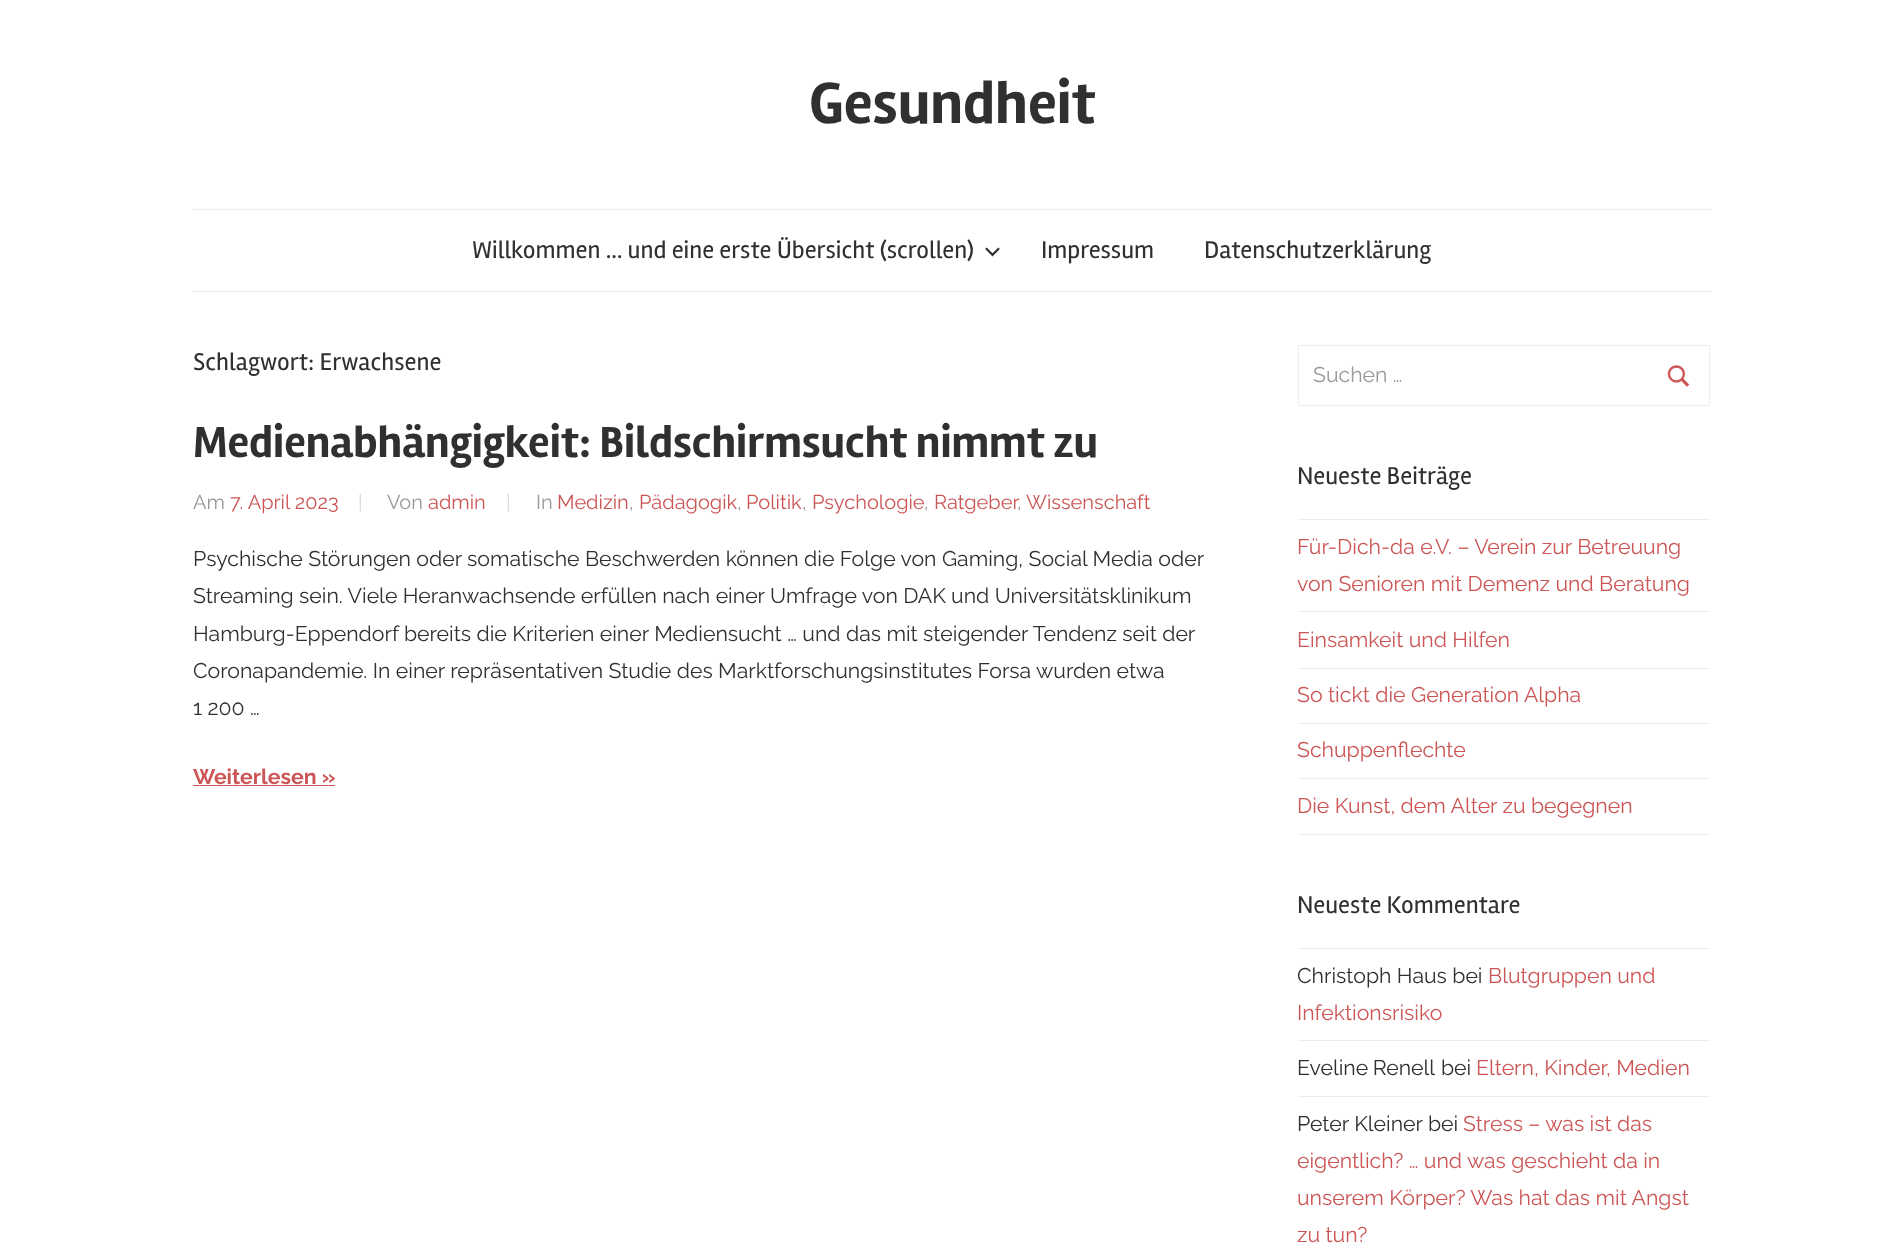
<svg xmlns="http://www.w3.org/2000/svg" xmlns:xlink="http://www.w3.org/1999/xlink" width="1903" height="1257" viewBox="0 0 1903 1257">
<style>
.cls-1{font:bold 60px Rambla;fill:#303030}
.cls-2{font:25px Rambla;fill:#303030}
.cls-3{font:bold 45px Rambla;fill:#303030}
.cls-4{font:100 20px Raleway;fill:#999999}
.cls-5{font:100 20px Raleway;fill:#cc5555}
.cls-6{font:100 20px Raleway;fill:#d9d9d9}
.cls-7{font:100 21.25px Raleway;fill:#303030}
.cls-8{font:100 21.25px 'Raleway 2';fill:#cc5555}
.cls-9{font:100 21.25px Raleway;fill:#999999}
.cls-10{font:100 21.25px Raleway;fill:#cc5555}
</style>
<rect width="100%" height="100%" fill="#ffffff"/>
<rect fill="#ececec" x="193" y="291" width="1518" height="1"/>
<rect fill="#ececec" x="193" y="209" width="1518" height="1"/>
<image xlink:href="image0.png" x="985" y="247" width="15" height="10"/>
<rect fill="#cc5555" x="193" y="785" width="142" height="1"/>
<rect fill="none" stroke="#ececec" x="1298.5" y="345.5" width="411" height="60"/>
<image xlink:href="image1.png" x="1667" y="365" width="23" height="22"/>
<rect fill="#ececec" x="1298" y="519" width="412" height="1"/>
<rect fill="#ececec" x="1298" y="611" width="412" height="1"/>
<rect fill="#ececec" x="1298" y="668" width="412" height="1"/>
<rect fill="#ececec" x="1298" y="723" width="412" height="1"/>
<rect fill="#ececec" x="1298" y="778" width="412" height="1"/>
<rect fill="#ececec" x="1298" y="834" width="412" height="1"/>
<rect fill="#ececec" x="1298" y="948" width="412" height="1"/>
<rect fill="#ececec" x="1298" y="1040" width="412" height="1"/>
<rect fill="#ececec" x="1298" y="1096" width="412" height="1"/>
<text class="cls-1" x="809" y="123">Gesundheit</text>
<text class="cls-2" x="472" y="258">Willkommen … und eine erste Übersicht (scrollen)</text>
<text class="cls-2" x="1041" y="258">Impressum</text>
<text class="cls-2" x="1204" y="258">Datenschutzerklärung</text>
<text class="cls-2" x="193" y="370">Schlagwort: Erwachsene</text>
<text class="cls-3" x="193" y="457">Medienabhängigkeit: Bildschirmsucht nimmt zu</text>
<text class="cls-4" x="193" y="509">Am</text>
<text class="cls-5" x="230" y="509">7. April 2023</text>
<text class="cls-6" x="358" y="509">|</text>
<text class="cls-4" x="387" y="509">Von</text>
<text class="cls-5" x="428" y="509">admin</text>
<text class="cls-6" x="506" y="509">|</text>
<text class="cls-4" x="536" y="509">In</text>
<text class="cls-5" x="557" y="509">Medizin</text>
<text class="cls-4" x="629" y="509">,</text>
<text class="cls-5" x="639" y="509">Pädagogik</text>
<text class="cls-4" x="737" y="509">,</text>
<text class="cls-5" x="746" y="509">Politik</text>
<text class="cls-4" x="802" y="509">,</text>
<text class="cls-5" x="812" y="509">Psychologie</text>
<text class="cls-4" x="924" y="509">,</text>
<text class="cls-5" x="934" y="509">Ratgeber</text>
<text class="cls-5" x="1026" y="509">Wissenschaft</text>
<text class="cls-4" x="1017" y="509">,</text>
<text class="cls-7"><tspan x="193" y="566">Psychische Störungen oder somatische Beschwerden können die Folge von Gaming, Social Media oder</tspan><tspan x="193" y="603">Streaming sein. Viele Heranwachsende erfüllen nach einer Umfrage von DAK und Universitätsklinikum</tspan><tspan x="193" y="641">Hamburg-Eppendorf bereits die Kriterien einer Mediensucht … und das mit steigender Tendenz seit der</tspan><tspan x="193" y="678">Coronapandemie. In einer repräsentativen Studie des Marktforschungsinstitutes Forsa wurden etwa</tspan><tspan x="193" y="715">1 200 …</tspan></text>
<text class="cls-8" x="193" y="784">Weiterlesen »</text>
<text class="cls-9" x="1313" y="382">Suchen …</text>
<text class="cls-2" x="1297" y="484">Neueste Beiträge</text>
<text class="cls-10"><tspan x="1297" y="554">Für-Dich-da e.V. – Verein zur Betreuung</tspan><tspan x="1297" y="591">von Senioren mit Demenz und Beratung</tspan></text>
<text class="cls-10" x="1297" y="647">Einsamkeit und Hilfen</text>
<text class="cls-10" x="1297" y="702">So tickt die Generation Alpha</text>
<text class="cls-10" x="1297" y="757">Schuppenflechte</text>
<text class="cls-10" x="1297" y="813">Die Kunst, dem Alter zu begegnen</text>
<text class="cls-2" x="1297" y="913">Neueste Kommentare</text>
<text class="cls-7" x="1297" y="983">Christoph Haus bei</text>
<text class="cls-10" x="1488" y="983">Blutgruppen und</text>
<text class="cls-10" x="1297" y="1020">Infektionsrisiko</text>
<text class="cls-7" x="1297" y="1075" word-spacing="-1">Eveline Renell</text>
<text class="cls-7" x="1441" y="1075">bei</text>
<text class="cls-10" x="1476" y="1075">Eltern, Kinder, Medien</text>
<text class="cls-7" x="1297" y="1131">Peter Kleiner</text>
<text class="cls-7" x="1428" y="1131">bei</text>
<text class="cls-10" x="1463" y="1131">Stress – was ist das</text>
<text class="cls-10"><tspan x="1297" y="1168">eigentlich? … und was geschieht da in</tspan><tspan x="1297" y="1205">unserem Körper? Was hat das mit Angst</tspan><tspan x="1297" y="1242">zu tun?</tspan></text>
</svg>
